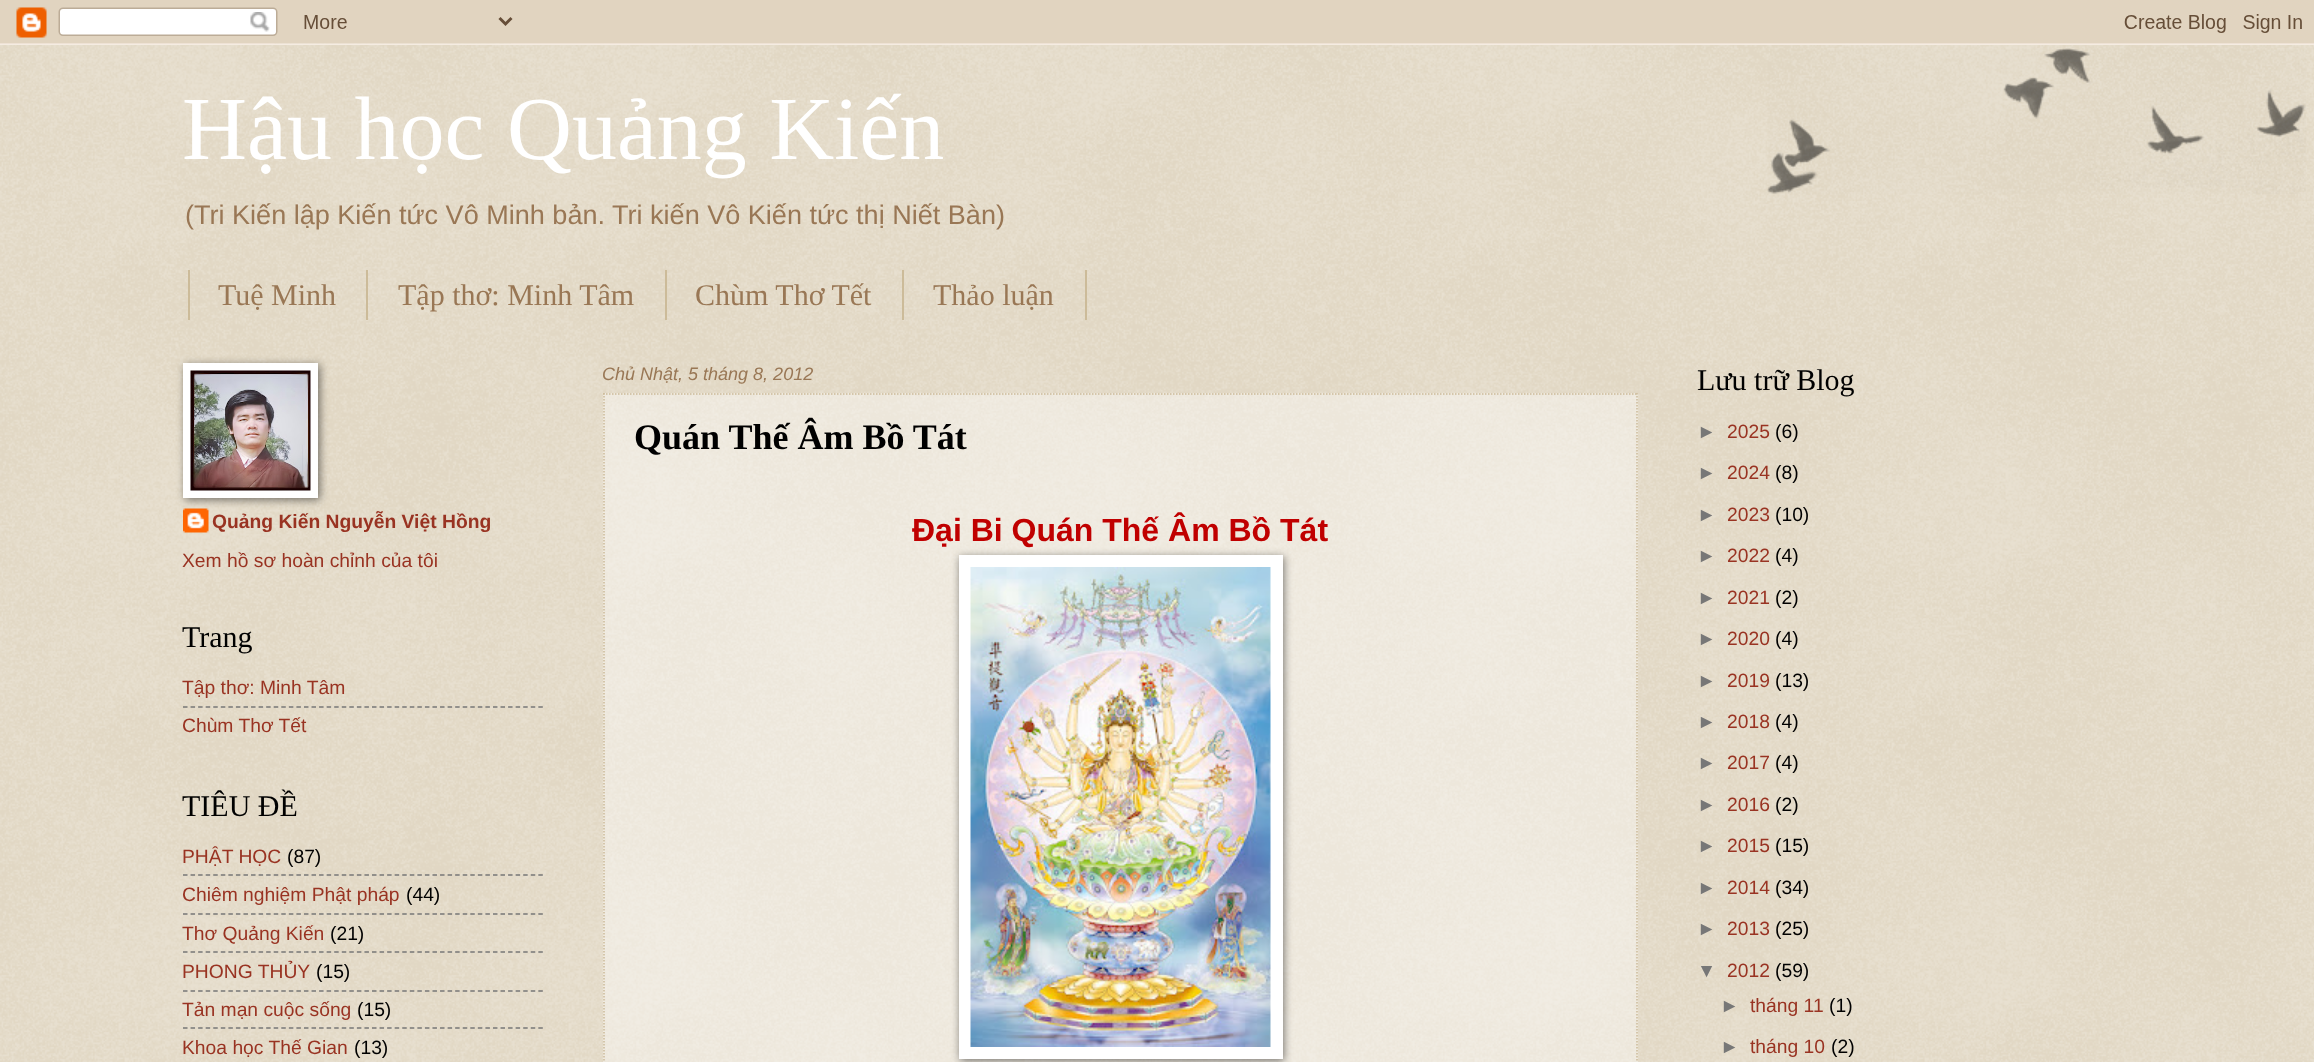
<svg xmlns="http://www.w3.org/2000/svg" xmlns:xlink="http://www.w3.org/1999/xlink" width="2314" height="1062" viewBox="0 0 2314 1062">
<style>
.cls-1{font:90px Liberation Serif;fill:#ffffff}
.cls-2{font:27.05px Liberation Sans;fill:#997755}
.cls-3{font:30px Liberation Serif;fill:#997755}
.cls-4{font:bold 19.3px Liberation Sans;fill:#993322}
.cls-5{font:19.3px Liberation Sans;fill:#993322}
.cls-6{font:30px Liberation Serif;fill:#000000}
.cls-7{font:19.3px Liberation Sans;fill:#000000}
.cls-8{font:italic 18px Liberation Sans;fill:#997755}
.cls-9{font:bold 36px Liberation Serif;fill:#000000}
.cls-10{font:bold 32px Liberation Sans;fill:#c00000}
.cls-11{font:19.3px Liberation Sans;fill:#777777}
</style>
<rect width="100%" height="100%" fill="#ccbb99"/>
<image xlink:href="image0.png" x="0" y="43" width="2314" height="1019"/>
<image xlink:href="image1.png" x="0" y="0" width="2314" height="45"/>
<rect fill="#ccbb99" x="366" y="270" width="2" height="50"/>
<rect fill="#ccbb99" x="188" y="270" width="2" height="50"/>
<rect fill="#ccbb99" x="665" y="270" width="2" height="50"/>
<rect fill="#ccbb99" x="902" y="270" width="2" height="50"/>
<rect fill="#ccbb99" x="1085" y="270" width="2" height="50"/>
<image xlink:href="image3.png" x="183" y="508" width="26" height="25"/>
<rect fill="#000000" fill-opacity="0.5" filter="blur(4px)" x="185" y="365" width="135" height="135"/>
<rect fill="#ffffff" x="183" y="363" width="135" height="135"/>
<image xlink:href="image2.png" x="190" y="370" width="121" height="121"/>
<path fill="none" stroke="#777777" stroke-width="1.5" stroke-dasharray="4.5 3.06" d="M183 707H543"/>
<path fill="none" stroke="#777777" stroke-width="1.5" stroke-dasharray="4.5 3.06" d="M183 875H543"/>
<path fill="none" stroke="#777777" stroke-width="1.5" stroke-dasharray="4.5 3.06" d="M183 914H543"/>
<path fill="none" stroke="#777777" stroke-width="1.5" stroke-dasharray="4.5 3.06" d="M183 952H543"/>
<path fill="none" stroke="#777777" stroke-width="1.5" stroke-dasharray="4.5 3.06" d="M183 991H543"/>
<path fill="none" stroke="#777777" stroke-width="1.5" stroke-dasharray="4.5 3.06" d="M183 1028H543"/>
<rect fill="#ffffff" fill-opacity="0.4" x="603" y="393" width="1035" height="669"/>
<path fill="none" stroke="#ccbb99" stroke-width="1.5" stroke-dasharray="1.5 1.5" d="M603 394H1638"/>
<path fill="none" stroke="#ccbb99" stroke-width="1.5" stroke-dasharray="1.5 1.5" d="M1637 393V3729"/>
<path fill="none" stroke="#ccbb99" stroke-width="1.5" stroke-dasharray="1.5 1.5" d="M604 393V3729"/>
<rect fill="#000000" fill-opacity="0.5" filter="blur(4px)" x="960" y="557" width="324" height="504"/>
<rect fill="#ffffff" x="959" y="555" width="324" height="504"/>
<image xlink:href="image4.png" x="970" y="567" width="301" height="480"/>
<image xlink:href="image5.png" x="1767" y="48" width="539" height="146"/>
<text class="cls-1" x="182" y="159">Hậu học Quảng Kiến</text>
<text class="cls-2" x="185" y="224">(Tri Kiến lập Kiến tức Vô Minh bản. Tri kiến Vô Kiến tức thị Niết Bàn)</text>
<text class="cls-3" x="218" y="305">Tuệ Minh</text>
<text class="cls-3" x="398" y="305">Tập thơ: Minh Tâm</text>
<text class="cls-3" x="695" y="305">Chùm Thơ Tết</text>
<text class="cls-3" x="933" y="305">Thảo luận</text>
<text class="cls-4" x="212" y="528">Quảng Kiến Nguyễn Việt Hồng</text>
<text class="cls-5" x="182" y="567">Xem hồ sơ hoàn chỉnh của tôi</text>
<text class="cls-6" x="182" y="647">Trang</text>
<text class="cls-5"><tspan x="182" y="694">Tập thơ: Minh Tâm</tspan><tspan x="182" y="732">Chùm Thơ Tết</tspan></text>
<text class="cls-6" x="182" y="816">TIÊU ĐỀ</text>
<text class="cls-5" x="182" y="863">PHẬT HỌC</text>
<text class="cls-7" x="287" y="863">(87)</text>
<text class="cls-5" x="182" y="901">Chiêm nghiệm Phật pháp</text>
<text class="cls-7" x="406" y="901">(44)</text>
<text class="cls-5" x="182" y="940">Thơ Quảng Kiến</text>
<text class="cls-7" x="330" y="940">(21)</text>
<text class="cls-5" x="182" y="978">PHONG THỦY</text>
<text class="cls-7" x="316" y="978">(15)</text>
<text class="cls-5" x="182" y="1016">Tản mạn cuộc sống</text>
<text class="cls-7" x="357" y="1016">(15)</text>
<text class="cls-5" x="182" y="1054">Khoa học Thế Gian</text>
<text class="cls-7" x="354" y="1054">(13)</text>
<text class="cls-8" x="602" y="380">Chủ Nhật, 5 tháng 8, 2012</text>
<text class="cls-9" x="634" y="449">Quán Thế Âm Bồ Tát</text>
<text class="cls-10" x="912" y="541">Đại Bi Quán Thế Âm Bồ Tát</text>
<text class="cls-6" x="1697" y="390">Lưu trữ Blog</text>
<text class="cls-11" x="1697" y="438">►</text>
<text class="cls-5" x="1727" y="438">2025</text>
<text class="cls-7" x="1775" y="438">(6)</text>
<text class="cls-11" x="1697" y="479">►</text>
<text class="cls-5" x="1727" y="479">2024</text>
<text class="cls-7" x="1775" y="479">(8)</text>
<text class="cls-11" x="1697" y="521">►</text>
<text class="cls-5" x="1727" y="521">2023</text>
<text class="cls-7" x="1775" y="521">(10)</text>
<text class="cls-11" x="1697" y="562">►</text>
<text class="cls-5" x="1727" y="562">2022</text>
<text class="cls-7" x="1775" y="562">(4)</text>
<text class="cls-11" x="1697" y="604">►</text>
<text class="cls-5" x="1727" y="604">2021</text>
<text class="cls-7" x="1775" y="604">(2)</text>
<text class="cls-11" x="1697" y="645">►</text>
<text class="cls-5" x="1727" y="645">2020</text>
<text class="cls-7" x="1775" y="645">(4)</text>
<text class="cls-11" x="1697" y="687">►</text>
<text class="cls-5" x="1727" y="687">2019</text>
<text class="cls-7" x="1775" y="687">(13)</text>
<text class="cls-11" x="1697" y="728">►</text>
<text class="cls-5" x="1727" y="728">2018</text>
<text class="cls-7" x="1775" y="728">(4)</text>
<text class="cls-11" x="1697" y="769">►</text>
<text class="cls-5" x="1727" y="769">2017</text>
<text class="cls-7" x="1775" y="769">(4)</text>
<text class="cls-11" x="1697" y="811">►</text>
<text class="cls-5" x="1727" y="811">2016</text>
<text class="cls-7" x="1775" y="811">(2)</text>
<text class="cls-11" x="1697" y="852">►</text>
<text class="cls-5" x="1727" y="852">2015</text>
<text class="cls-7" x="1775" y="852">(15)</text>
<text class="cls-11" x="1697" y="894">►</text>
<text class="cls-5" x="1727" y="894">2014</text>
<text class="cls-7" x="1775" y="894">(34)</text>
<text class="cls-11" x="1697" y="935">►</text>
<text class="cls-5" x="1727" y="935">2013</text>
<text class="cls-7" x="1775" y="935">(25)</text>
<text class="cls-11" x="1697" y="977">▼</text>
<text class="cls-5" x="1727" y="977">2012</text>
<text class="cls-7" x="1775" y="977">(59)</text>
<text class="cls-11" x="1720" y="1012">►</text>
<text class="cls-5" x="1750" y="1012">tháng 11</text>
<text class="cls-7" x="1829" y="1012">(1)</text>
<text class="cls-11" x="1720" y="1053">►</text>
<text class="cls-5" x="1750" y="1053">tháng 10</text>
<text class="cls-7" x="1831" y="1053">(2)</text>
</svg>
